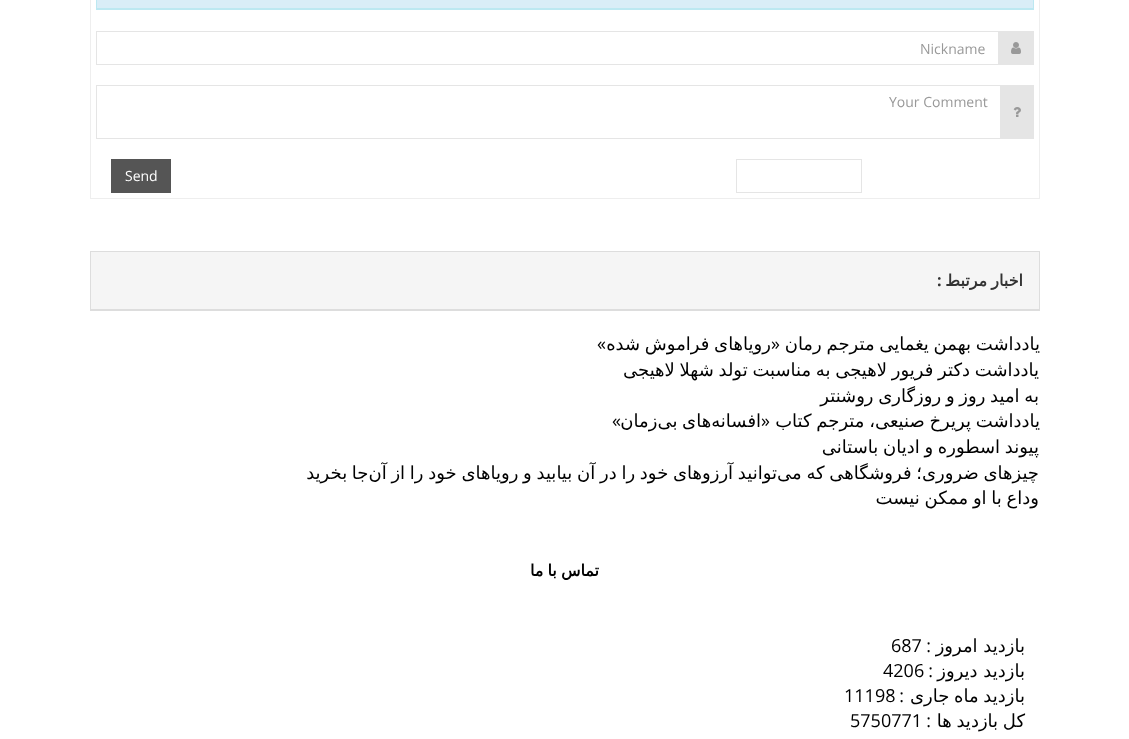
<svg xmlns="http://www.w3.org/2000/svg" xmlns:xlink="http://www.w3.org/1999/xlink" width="1129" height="739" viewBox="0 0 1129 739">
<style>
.cls-1{font:14px Open Sans;fill:#999999}
.cls-2{font:14px Open Sans;fill:#ffffff}
.cls-3{font:bold 16px DejaVu Sans;direction:rtl;fill:#333333}
.cls-4{font:bold 16px Open Sans;fill:#333333}
.cls-5{font:18px DejaVu Sans;direction:rtl;fill:#000000}
.cls-6{font:18px Open Sans;direction:rtl;fill:#000000}
.cls-7{font:bold 16px DejaVu Sans;direction:rtl;fill:#000000}
.cls-8{font:18px Open Sans;fill:#000000}
</style>
<defs>
<clipPath id="clip1"><rect x="90" y="331" width="950" height="200"/></clipPath>
</defs>
<rect width="100%" height="100%" fill="#ffffff"/>
<rect fill="none" stroke="#eeeeee" x="90.5" y="-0.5" width="949" height="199"/>
<rect fill="none" stroke="#bce8f1" x="96.5" y="-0.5" width="937" height="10"/>
<rect fill="#d9edf7" x="97" y="0" width="936" height="8"/>
<rect fill="#bce8f1" x="97" y="8" width="936" height="1"/>
<rect fill="#e5e5e5" x="999" y="31" width="35" height="34"/>
<image xlink:href="image0.png" x="1011" y="42" width="10" height="12"/>
<rect fill="none" stroke="#e5e5e5" x="96.5" y="31.5" width="902" height="33"/>
<rect fill="#e5e5e5" x="1001" y="85" width="33" height="54"/>
<image xlink:href="image1.png" x="1013" y="107" width="8" height="10"/>
<rect fill="none" stroke="#e5e5e5" x="96.5" y="85.5" width="904" height="53"/>
<rect fill="none" stroke="#e5e5e5" x="736.5" y="159.5" width="125" height="33"/>
<rect fill="#555555" x="111" y="159" width="60" height="34"/>
<rect fill="none" stroke="#dddddd" x="90.5" y="251.5" width="949" height="59"/>
<rect fill="#f5f5f5" x="91" y="252" width="948" height="57"/>
<rect fill="#dddddd" x="91" y="309" width="948" height="1"/>
<text class="cls-1" x="920" y="54">Nickname</text>
<text class="cls-1" x="889" y="107">Your Comment</text>
<text class="cls-2" x="125" y="181">Send</text>
<text class="cls-3" x="1023" y="286" word-spacing="-1">اخبار مرتبط</text>
<text class="cls-4" x="937" y="286">:</text>
<g clip-path="url(#clip1)">
<text class="cls-5" x="1040" y="350" word-spacing="-1">یادداشت بهمن یغمایی مترجم رمان</text>
</g>
<text class="cls-5" x="771" y="350" word-spacing="-1">رویاهای فراموش شده</text>
<text class="cls-6" x="780" y="350">«</text>
<text class="cls-6" x="606" y="350">»</text>
<g clip-path="url(#clip1)">
<text class="cls-5"><tspan x="1039" y="376" word-spacing="-1">یادداشت دکتر فریور لاهیجی به مناسبت تولد شهلا لاهیجی</tspan><tspan x="1039" y="402" word-spacing="-1">به امید روز و روزگاری روشنتر</tspan></text>
<text class="cls-5" x="1040" y="427" word-spacing="-1">یادداشت پریرخ صنیعی، مترجم کتاب</text>
</g>
<text class="cls-6" x="770" y="427">«</text>
<text class="cls-5" x="761" y="427" word-spacing="-1">افسانه‌های بی‌زمان</text>
<text class="cls-6" x="621" y="427">»</text>
<g clip-path="url(#clip1)">
<text class="cls-5"><tspan x="1039" y="453" word-spacing="-1">پیوند اسطوره و ادیان باستانی</tspan><tspan x="1039" y="479" word-spacing="-1">چیزهای ضروری؛ فروشگاهی که می‌توانید آرزوهای خود را در آن بیابید و رویاهای خود را از آن‌جا بخرید</tspan><tspan x="1039" y="504" word-spacing="-1">وداع با او ممکن نیست</tspan></text>
</g>
<text class="cls-7" x="599" y="576" word-spacing="-1">تماس با ما</text>
<text class="cls-5" x="1025" y="652">بازدید امروز</text>
<text class="cls-6" x="931" y="652">:</text>
<text class="cls-8" x="891" y="652">687</text>
<text class="cls-5" x="1025" y="677">بازدید دیروز</text>
<text class="cls-6" x="933" y="677">:</text>
<text class="cls-8" x="883" y="677">4206</text>
<text class="cls-5" x="1025" y="702" word-spacing="-1">بازدید ماه جاری</text>
<text class="cls-6" x="904" y="702">:</text>
<text class="cls-8" x="844" y="702">11198</text>
<text class="cls-5" x="1025" y="727" word-spacing="-1">کل بازدید ها</text>
<text class="cls-6" x="931" y="727">:</text>
<text class="cls-8" x="850" y="727">5750771</text>
</svg>
